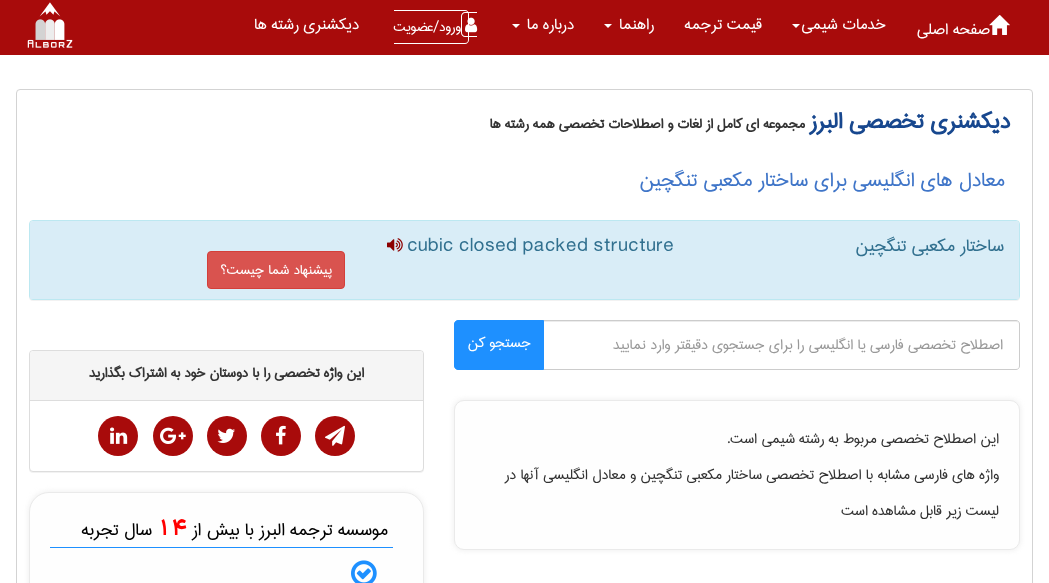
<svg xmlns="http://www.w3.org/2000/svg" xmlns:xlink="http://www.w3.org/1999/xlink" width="1049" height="583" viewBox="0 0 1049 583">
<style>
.cls-1{font:19.5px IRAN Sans;direction:rtl;fill:#ffffff}
.cls-2{font:17px IRAN Sans;direction:rtl;fill:#ffffff}
.cls-3{font:bold 28px IRAN Sans;direction:rtl;fill:#17478e}
.cls-4{font:bold 17px IRAN Sans;direction:rtl;fill:#333333}
.cls-5{font:25px IRAN Sans;direction:rtl;fill:#3f75c8}
.cls-6{font:22px IRAN Sans;direction:rtl;fill:#31708f}
.cls-7{font:22px IRAN Sans;fill:#31708f}
.cls-8{font:18px IRAN Sans;direction:rtl;fill:#999999}
.cls-9{font:18px IRAN Sans;direction:rtl;fill:#ffffff}
.cls-10{font:18px IRAN Sans;direction:rtl;fill:#333333}
.cls-11{font:22px IRAN Sans;direction:rtl;fill:#000000}
.cls-12{font:bold 22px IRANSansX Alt;fill:#ff0000}
</style>
<rect width="100%" height="100%" fill="#ffffff"/>
<rect fill="#a80b0b" x="0" y="0" width="1049" height="55"/>
<path fill="#ffffff" d="M792 24H800L796 28Z"/>
<path fill="#ffffff" d="M604 24H612L608 28Z"/>
<path fill="#ffffff" d="M512 24H520L516 28Z"/>
<path fill="#ffffff" fill-rule="evenodd" d="M465 12H477V37H465C463 37 461 35 461 33V16C461 14 463 12 465 12ZM465 13H477V36H465C463.5 36 462 34.5 462 33V16C462 14.5 463.5 13 465 13Z"/>
<path fill="#ffffff" fill-rule="evenodd" d="M394 10H465C467 10 469 12 469 14V40C469 42 467 44 465 44H394ZM394 11H465C467 11 468 12 468 14V40C468 42 467 43 465 43H394Z"/>
<image xlink:href="image1.png" x="465" y="17" width="13" height="16"/>
<image xlink:href="image2.png" x="27" y="2" width="46" height="46"/>
<rect fill="none" stroke="#d3d3d3" x="16.5" y="89.5" width="1016" height="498" rx="3.5"/>
<rect fill="#000000" fill-opacity="0.05" filter="blur(0.5px)" x="29" y="221" width="991" height="80" rx="4"/>
<rect fill="none" stroke="#bce8f1" x="29.5" y="220.5" width="990" height="79" rx="3.5"/>
<path fill="#d9edf7" d="M33 221H1016C1017.5 221 1019 222.5 1019 224V299H30V224C30 222.5 31.5 221 33 221Z"/>
<image xlink:href="image3.png" x="387" y="238" width="16" height="14"/>
<rect fill="#d9534f" stroke="#d43f3a" x="207.5" y="251.5" width="137" height="37" rx="3.5"/>
<path fill="#ececec" d="M544 322H1016C1018 322 1019 323 1019 325C1019 323 1018 321 1016 321H544Z"/>
<path fill="none" stroke="#cccccc" d="M543.5 320.5H1016C1018 320.5 1019.5 322 1019.5 324V366C1019.5 368 1018 369.5 1016 369.5H543.5Z"/>
<path fill="#1e90ff" stroke="#1e90ff" d="M458 320.5H543.5V369.5H458C456 369.5 454.5 368 454.5 366V324C454.5 322 456 320.5 458 320.5Z"/>
<rect fill="#f1f1f1" filter="blur(2.5px)" x="453" y="399" width="568" height="152" rx="11"/>
<rect fill="#fefefe" stroke="#eaeaea" x="454.5" y="400.5" width="565" height="149" rx="9.5"/>
<rect fill="#000000" fill-opacity="0.05" filter="blur(0.5px)" x="29" y="351" width="395" height="122" rx="4"/>
<rect fill="#ffffff" stroke="#dddddd" x="29.5" y="350.5" width="394" height="121" rx="3.5"/>
<path fill="#f5f5f5" d="M33 351H420C421.5 351 423 352.5 423 354V401H30V354C30 352.5 31.5 351 33 351Z"/>
<rect fill="#dddddd" x="30" y="400" width="393" height="1"/>
<circle fill="#a80b0b" cx="335" cy="436" r="20"/>
<image xlink:href="image4.png" x="325" y="425" width="20" height="21"/>
<circle fill="#a80b0b" cx="281" cy="436" r="20"/>
<image xlink:href="image5.png" x="276" y="425" width="10" height="20"/>
<circle fill="#a80b0b" cx="227" cy="436" r="20"/>
<image xlink:href="image6.png" x="217" y="428" width="18" height="15"/>
<circle fill="#a80b0b" cx="173" cy="436" r="20"/>
<image xlink:href="image7.png" x="160" y="427" width="26" height="17"/>
<circle fill="#a80b0b" cx="118" cy="436" r="20"/>
<image xlink:href="image8.png" x="110" y="427" width="18" height="17"/>
<rect fill="#f1f1f1" filter="blur(2.5px)" x="28" y="491" width="397" height="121" rx="21"/>
<rect fill="#fefefe" stroke="#eaeaea" x="29.5" y="492.5" width="394" height="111" rx="19.5"/>
<rect fill="#1e90ff" x="50" y="547" width="343" height="1"/>
<image xlink:href="image9.png" x="351" y="560" width="26" height="23"/>
<text class="cls-1" x="990" y="34">صفحه اصلی</text>
<image xlink:href="image0.png" x="989" y="15" width="21" height="20"/>
<text class="cls-1" x="886" y="29">خدمات شيمی</text>
<text class="cls-1" x="762" y="29">قیمت ترجمه</text>
<text class="cls-1" x="654" y="29">راهنما</text>
<text class="cls-1" x="574" y="29">درباره ما</text>
<text class="cls-2" x="461" y="31">ورود/عضویت</text>
<text class="cls-1" x="359" y="29">دیکشنری رشته ها</text>
<text class="cls-3" x="1010" y="128">دیکشنری تخصصی البرز</text>
<text class="cls-4" x="805" y="128">مجموعه ای کامل از لغات و اصطلاحات تخصصی همه رشته ها</text>
<text class="cls-5" x="1005" y="186">معادل های انگلیسی برای ساختار مکعبی تنگچین</text>
<text class="cls-6" x="1004" y="251">ساختار مکعبی تنگچین</text>
<text class="cls-7" x="407" y="251">cubic closed packed structure</text>
<text class="cls-2" x="332" y="274">پیشنهاد شما چیست؟</text>
<text class="cls-8" x="1003" y="349">اصطلاح تخصصی فارسی یا انگلیسی را برای جستجوی دقیقتر وارد نمایید</text>
<text class="cls-9" x="531" y="347">جستجو کن</text>
<text class="cls-10" x="999" y="443">این اصطلاح تخصصی مربوط به رشته</text>
<text class="cls-10" x="795" y="443">شيمی</text>
<text class="cls-10" x="757" y="443">است.</text>
<text class="cls-10" x="999" y="479">واژه های فارسی مشابه</text>
<text class="cls-10" x="873" y="479">با اصطلاح تخصصی</text>
<text class="cls-10" x="762" y="479">ساختار مکعبی تنگچین</text>
<text class="cls-10" x="636" y="479">و معادل انگلیسی آنها در</text>
<text class="cls-10" x="999" y="515">لیست زیر قابل مشاهده است</text>
<text class="cls-4" x="364" y="377">این واژه تخصصی را با دوستان خود به اشتراک بگذارید</text>
<text class="cls-11" x="388" y="535">موسسه ترجمه البرز با بیش از</text>
<text class="cls-12" x="157" y="535">14</text>
<text class="cls-11" x="152" y="535">سال تجربه</text>
</svg>
